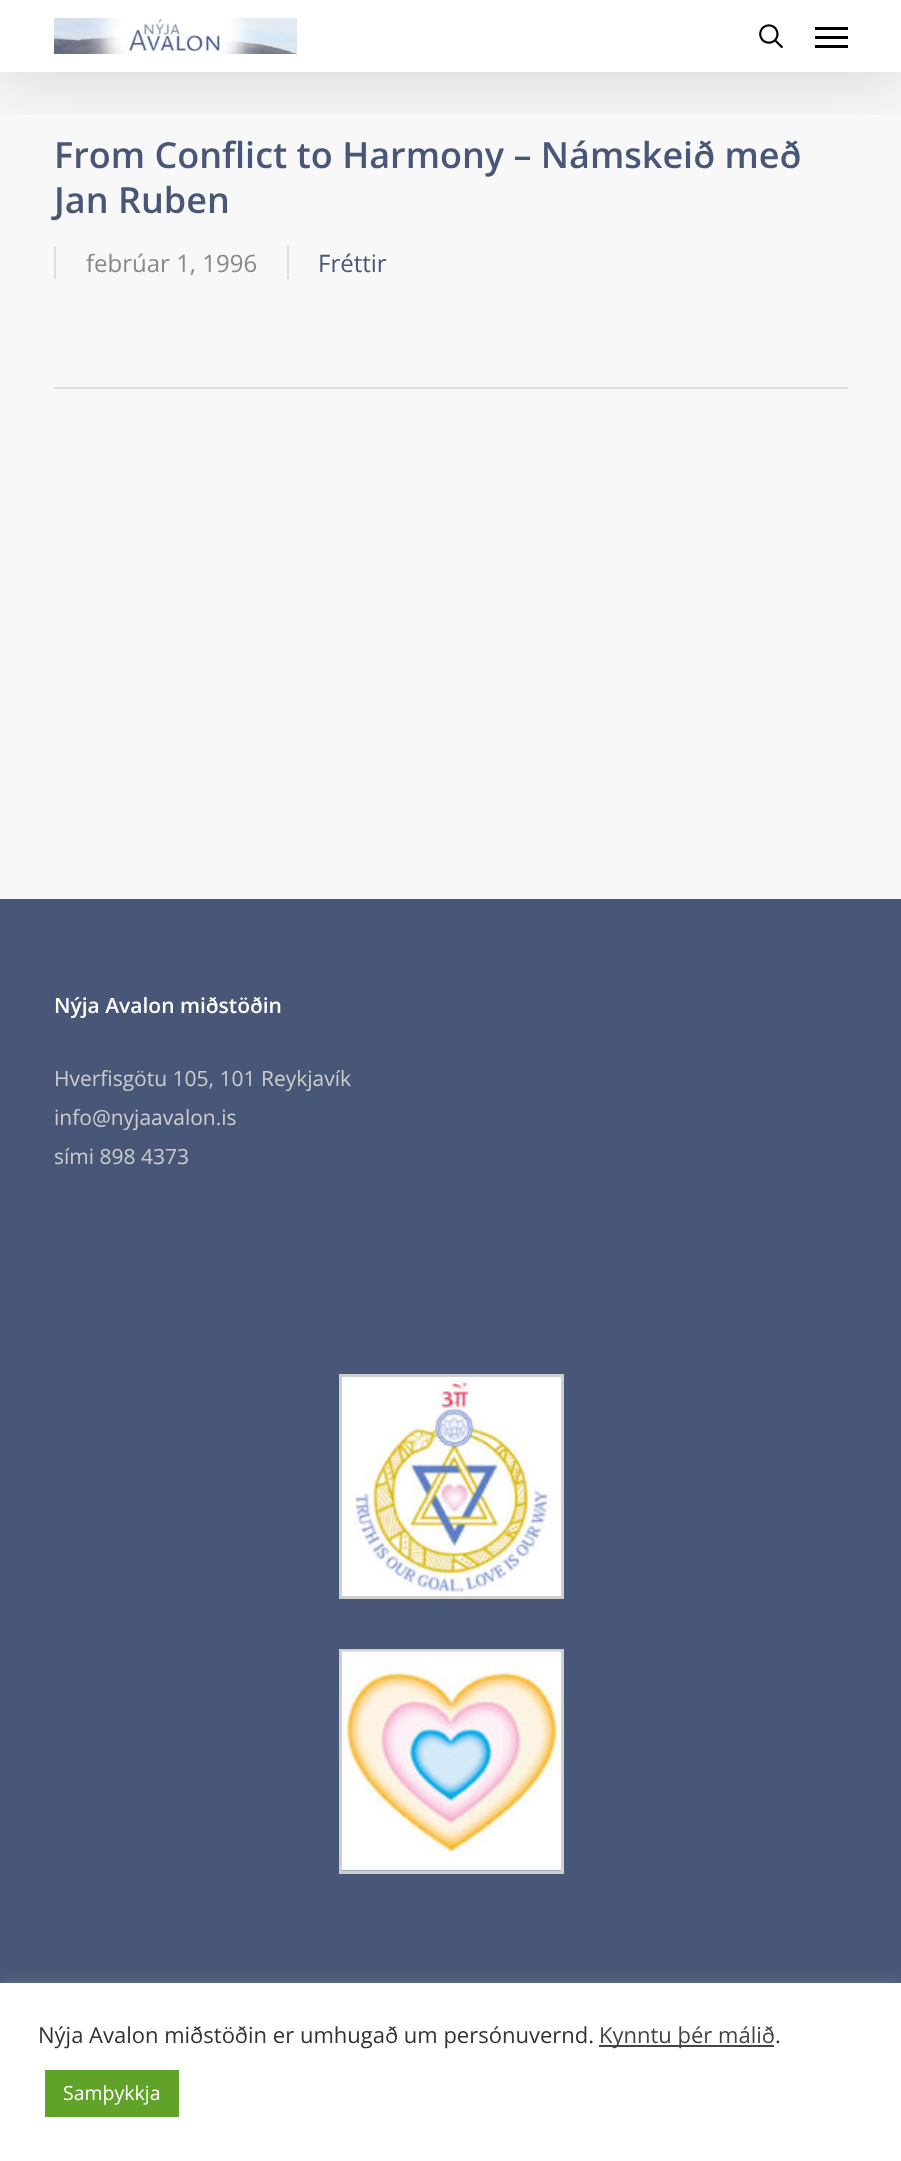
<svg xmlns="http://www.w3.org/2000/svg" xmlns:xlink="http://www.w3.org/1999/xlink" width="901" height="2161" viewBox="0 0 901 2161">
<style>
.cls-1{font:600 36px Open Sans;fill:#485777}
.cls-2{font:24px Open Sans;fill:#888888}
.cls-3{font:24px Open Sans;fill:#485777}
.cls-4{font:600 21px Open Sans;fill:#ffffff}
.cls-5{font:21px Open Sans;fill:#cccccc}
.cls-6{font:22px Open Sans;fill:#333333}
.cls-7{font:22px Open Sans;fill:#444444}
.cls-8{font:19.5px Open Sans;fill:#ffffff}
</style>
<defs>
<clipPath id="clip1"><rect x="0" y="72" width="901" height="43"/></clipPath>
</defs>
<rect width="100%" height="100%" fill="#ffffff"/>
<rect fill="#f8f8f8" x="0" y="72" width="901" height="827"/>
<g clip-path="url(#clip1)">
<rect fill="#000000" fill-opacity="0.15" filter="blur(34px)" x="0" y="5" width="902" height="72"/>
</g>
<image xlink:href="image0.png" x="54" y="18" width="243" height="36"/>
<image xlink:href="image1.png" x="759" y="24" width="24" height="24"/>
<rect fill="#000000" x="815" y="27" width="33" height="3"/>
<rect fill="#000000" x="815" y="45" width="33" height="3"/>
<rect fill="#000000" x="815" y="36" width="33" height="3"/>
<rect fill="#dddddd" x="54" y="387" width="794" height="2"/>
<rect fill="#dfdfdf" x="54" y="246" width="2" height="33"/>
<rect fill="#dfdfdf" x="287" y="246" width="2" height="33"/>
<rect fill="#485777" x="0" y="899" width="901" height="1084"/>
<rect fill="none" stroke="#cfcfcf" stroke-width="3" x="340.5" y="1375.5" width="222" height="222"/>
<image xlink:href="image2.png" x="342" y="1377" width="219" height="219"/>
<rect fill="none" stroke="#cfcfcf" stroke-width="3" x="340.5" y="1650.5" width="222" height="222"/>
<image xlink:href="image3.png" x="342" y="1651" width="219" height="220"/>
<rect fill="#acabab" fill-opacity="0.3" filter="blur(7.5px)" x="0" y="1982" width="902" height="178"/>
<rect fill="#ffffff" x="0" y="1983" width="901" height="178"/>
<rect fill="#444444" x="599" y="2045" width="175" height="2"/>
<rect fill="#61a229" x="45" y="2070" width="134" height="47"/>
<text class="cls-1"><tspan x="54" y="168">From Conflict to Harmony – Námskeið með</tspan><tspan x="54" y="213">Jan Ruben</tspan></text>
<text class="cls-2" x="86" y="272">febrúar 1, 1996</text>
<text class="cls-3" x="318" y="272">Fréttir</text>
<text class="cls-4" x="54" y="1013">Nýja Avalon miðstöðin</text>
<text class="cls-5"><tspan x="54" y="1086">Hverfisgötu 105, 101 Reykjavík</tspan><tspan x="54" y="1125">info@nyjaavalon.is</tspan><tspan x="54" y="1164">sími 898 4373</tspan></text>
<text class="cls-6" x="38" y="2043">Nýja Avalon miðstöðin er umhugað um persónuvernd.</text>
<text class="cls-7" x="599" y="2043">Kynntu þér málið</text>
<text class="cls-6" x="775" y="2043">.</text>
<text class="cls-8" x="63" y="2100">Samþykkja</text>
</svg>
